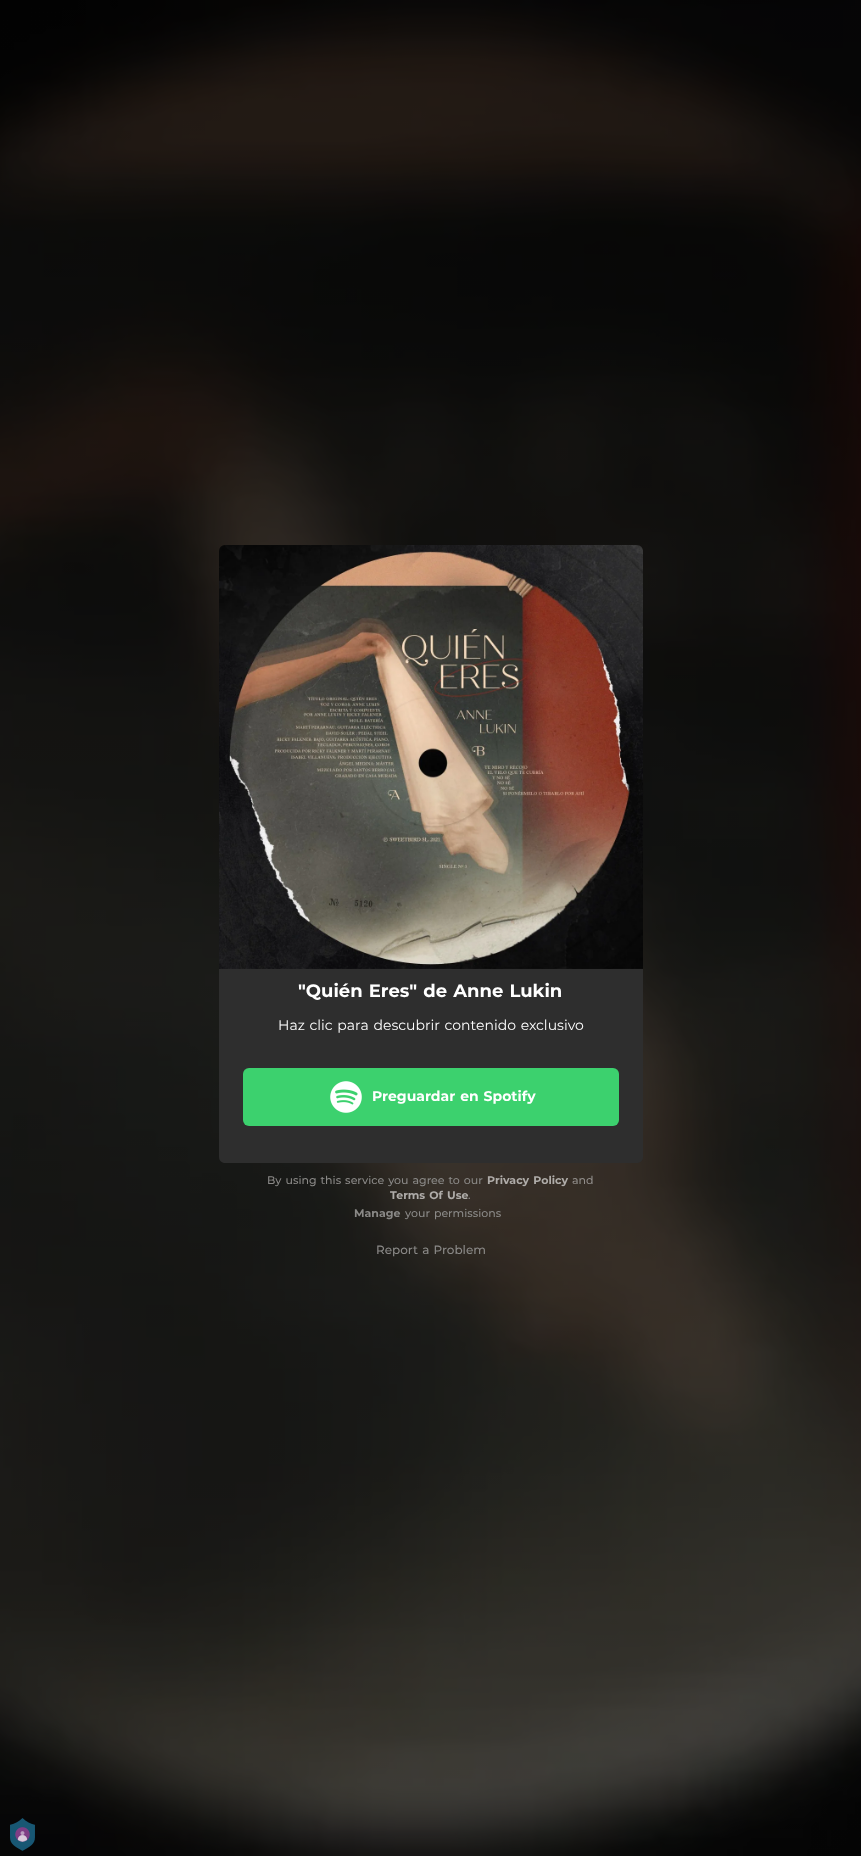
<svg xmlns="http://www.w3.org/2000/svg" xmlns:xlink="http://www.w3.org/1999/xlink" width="861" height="1856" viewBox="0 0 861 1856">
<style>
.cls-1{font:bold 18px Montserrat;fill:#ffffff}
.cls-2{font:14px Montserrat;fill:#ffffff}
.cls-3{font:bold 14px Montserrat;fill:#ffffff}
.cls-4{font:500 11px Montserrat;fill:#8a8987}
.cls-5{font:bold 11px Montserrat;fill:#afaca9}
.cls-6{font:500 11px Montserrat;fill:#908d8a}
.cls-7{font:bold 11px Montserrat;fill:#8a8987}
.cls-8{font:500 12px Montserrat;fill:#8a8987}
</style>
<rect width="100%" height="100%" fill="#ffffff"/>
<image xlink:href="image0.png" x="0" y="0" width="861" height="1856"/>
<image xlink:href="image1.png" x="219" y="545" width="424" height="424"/>
<path fill="#2e2e2e" d="M219 969H643V1157C643 1160.5 640.5 1163 637 1163H225C221.5 1163 219 1160.5 219 1157Z"/>
<rect fill="#3cd16e" x="243" y="1068" width="376" height="58" rx="6"/>
<image xlink:href="image2.png" x="330" y="1081" width="32" height="32"/>
<image xlink:href="image3.png" x="10" y="1818" width="25" height="33"/>
<text class="cls-1" x="298" y="997" word-spacing="1">"Quién Eres" de Anne Lukin</text>
<text class="cls-2" x="278" y="1030" word-spacing="1">Haz clic para descubrir contenido exclusivo</text>
<text class="cls-3" x="372" y="1101" word-spacing="1">Preguardar en Spotify</text>
<text class="cls-4" x="267" y="1184" word-spacing="1">By using this service you agree to our</text>
<text class="cls-5" x="487" y="1184" word-spacing="1">Privacy Policy</text>
<text class="cls-6" x="572" y="1184">and</text>
<text class="cls-5" x="390" y="1199" word-spacing="1">Terms Of Use</text>
<text class="cls-6" x="468" y="1199">.</text>
<text class="cls-7" x="354" y="1217">Manage</text>
<text class="cls-4" x="405" y="1217" word-spacing="1">your permissions</text>
<text class="cls-8" x="376" y="1254" word-spacing="1">Report a Problem</text>
</svg>
